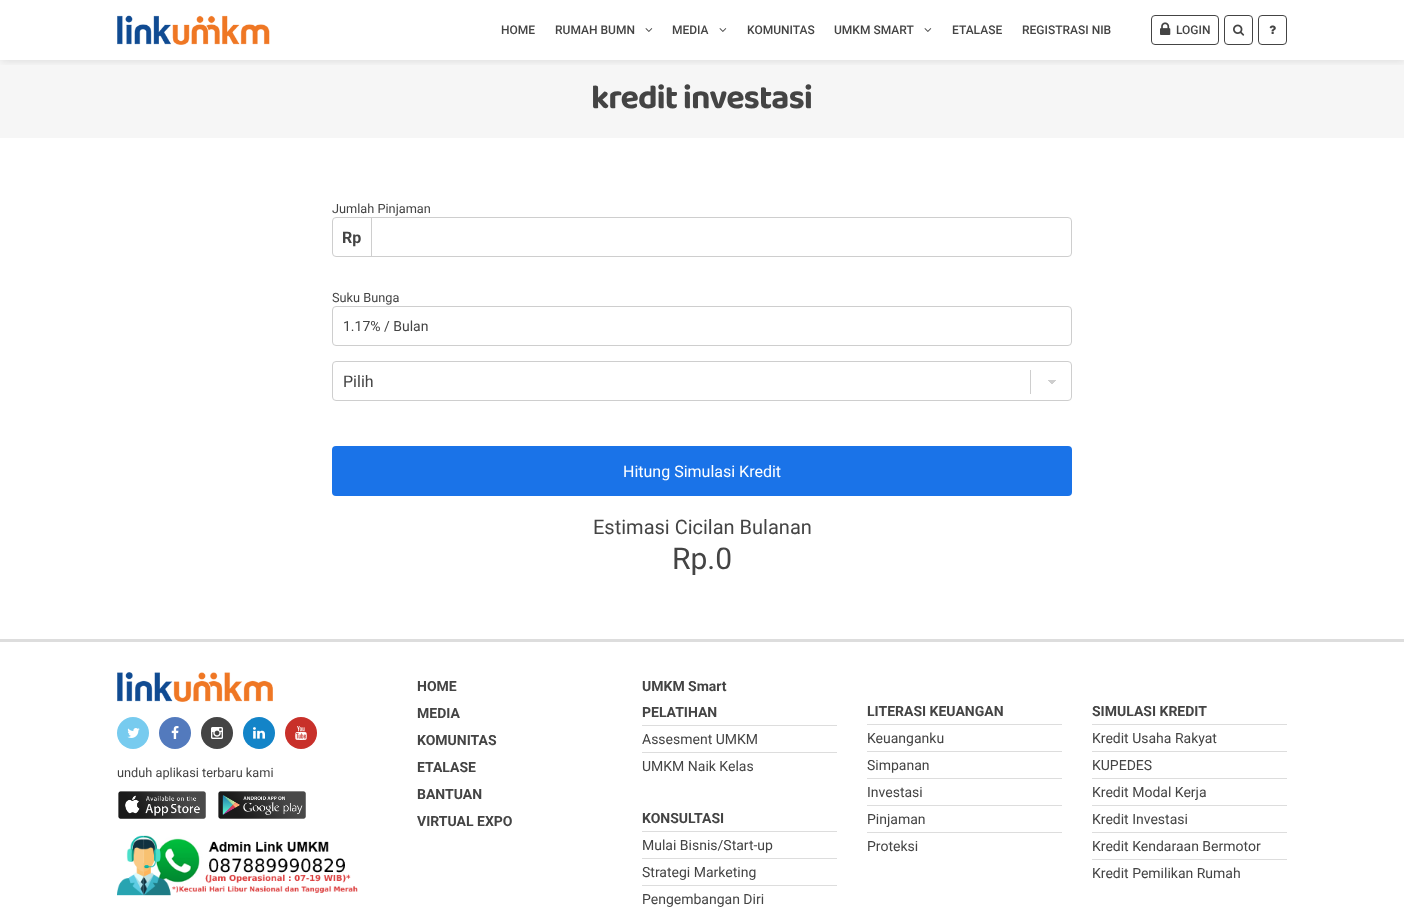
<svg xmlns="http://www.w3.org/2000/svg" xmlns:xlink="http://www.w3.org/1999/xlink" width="1404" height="914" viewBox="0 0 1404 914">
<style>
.cls-1{font:500 12px Roboto;fill:#444444}
.cls-2{font:bold 34px 'Baloo 2';letter-spacing:-1px;fill:#444444}
.cls-3{font:12.75px Roboto;fill:#444444}
.cls-4{font:bold 16px Roboto;fill:#444444}
.cls-5{font:14px Roboto;fill:#444444}
.cls-6{font:16px Roboto;fill:#444444}
.cls-7{font:16px Roboto;fill:#ffffff}
.cls-8{font:20px Roboto;fill:#444444}
.cls-9{font:30px Roboto;fill:#444444}
.cls-10{font:bold 14px Roboto;fill:#444444}
</style>
<defs>
<clipPath id="clip1"><rect x="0" y="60" width="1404" height="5"/></clipPath>
<linearGradient id="g1" gradientUnits="userSpaceOnUse" x1="1051" y1="380" x2="1056" y2="385"><stop offset="0.5" stop-color="#cecece"/><stop offset="0.5" stop-color="#ffffff"/></linearGradient>
<linearGradient id="g2" gradientUnits="userSpaceOnUse" x1="1047" y1="385" x2="1052" y2="380"><stop offset="0.5" stop-color="#cecece" stop-opacity="0"/><stop offset="0.5" stop-color="#cecece"/></linearGradient>
</defs>
<rect width="100%" height="100%" fill="#ffffff"/>
<rect fill="#f6f6f6" x="0" y="60" width="1404" height="78"/>
<g clip-path="url(#clip1)">
<rect fill="#000000" fill-opacity="0.1" filter="blur(4.5px)" x="1" y="1" width="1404" height="60"/>
</g>
<image xlink:href="image0.png" x="117" y="15" width="153" height="30"/>
<image xlink:href="image1.png" x="645" y="28" width="8" height="4"/>
<image xlink:href="image1.png" x="719" y="28" width="8" height="4"/>
<image xlink:href="image1.png" x="924" y="28" width="8" height="4"/>
<rect fill="none" stroke="#444444" x="1151.5" y="15.5" width="67" height="29" rx="3.5"/>
<image xlink:href="image2.png" x="1160" y="22" width="11" height="13"/>
<rect fill="none" stroke="#444444" x="1224.5" y="15.5" width="28" height="29" rx="3.5"/>
<image xlink:href="image3.png" x="1233" y="24" width="12" height="12"/>
<rect fill="none" stroke="#444444" x="1258.5" y="15.5" width="28" height="29" rx="3.5"/>
<image xlink:href="image4.png" x="1269" y="25" width="7" height="9"/>
<rect fill="none" stroke="#cecece" x="332.5" y="217.5" width="739" height="39" rx="3.5"/>
<rect fill="#cecece" x="371" y="217" width="1" height="40"/>
<rect fill="none" stroke="#cecece" x="332.5" y="306.5" width="739" height="39" rx="3.5"/>
<rect fill="#cecece" x="1030" y="370" width="1" height="24"/>
<rect fill="url(#g1)" x="1051" y="380" width="5" height="4"/>
<rect fill="url(#g2)" x="1047" y="380" width="5" height="3"/>
<rect fill="none" stroke="#cecece" x="332.5" y="361.5" width="739" height="39" rx="3.5"/>
<rect fill="#1a73e8" x="332" y="446" width="740" height="50" rx="4"/>
<rect fill="#dddddd" x="0" y="639" width="1404" height="3"/>
<image xlink:href="image5.png" x="117" y="672" width="156" height="30"/>
<circle fill="#77cbef" cx="133" cy="733" r="16"/>
<image xlink:href="image6.png" x="127" y="728" width="13" height="10"/>
<circle fill="#537abd" cx="175" cy="733" r="16"/>
<image xlink:href="image7.png" x="171" y="726" width="8" height="13"/>
<circle fill="#444444" cx="217" cy="733" r="16"/>
<image xlink:href="image8.png" x="211" y="727" width="12" height="12"/>
<circle fill="#1384c8" cx="259" cy="733" r="16"/>
<image xlink:href="image9.png" x="253" y="727" width="12" height="12"/>
<circle fill="#c8302a" cx="301" cy="733" r="16"/>
<image xlink:href="image10.png" x="295" y="726" width="12" height="14"/>
<image xlink:href="image11.png" x="118" y="791" width="88" height="28"/>
<image xlink:href="image12.png" x="218" y="791" width="88" height="28"/>
<image xlink:href="image13.png" x="117" y="835" width="241" height="61"/>
<rect fill="#dddddd" x="642" y="725" width="195" height="1"/>
<rect fill="#dddddd" x="642" y="752" width="195" height="1"/>
<rect fill="#dddddd" x="642" y="831" width="195" height="1"/>
<rect fill="#dddddd" x="642" y="858" width="195" height="1"/>
<rect fill="#dddddd" x="642" y="885" width="195" height="1"/>
<rect fill="#dddddd" x="867" y="724" width="195" height="1"/>
<rect fill="#dddddd" x="867" y="751" width="195" height="1"/>
<rect fill="#dddddd" x="867" y="778" width="195" height="1"/>
<rect fill="#dddddd" x="867" y="805" width="195" height="1"/>
<rect fill="#dddddd" x="867" y="832" width="195" height="1"/>
<rect fill="#dddddd" x="1092" y="724" width="195" height="1"/>
<rect fill="#dddddd" x="1092" y="751" width="195" height="1"/>
<rect fill="#dddddd" x="1092" y="778" width="195" height="1"/>
<rect fill="#dddddd" x="1092" y="805" width="195" height="1"/>
<rect fill="#dddddd" x="1092" y="832" width="195" height="1"/>
<rect fill="#dddddd" x="1092" y="859" width="195" height="1"/>
<text class="cls-1" x="501" y="34">HOME</text>
<text class="cls-1" x="555" y="34">RUMAH BUMN</text>
<text class="cls-1" x="672" y="34">MEDIA</text>
<text class="cls-1" x="747" y="34">KOMUNITAS</text>
<text class="cls-1" x="834" y="34">UMKM SMART</text>
<text class="cls-1" x="952" y="34">ETALASE</text>
<text class="cls-1" x="1022" y="34">REGISTRASI NIB</text>
<text class="cls-1" x="1176" y="34">LOGIN</text>
<text class="cls-2" x="591" y="108">kredit investasi</text>
<text class="cls-3" x="332" y="213">Jumlah Pinjaman</text>
<text class="cls-4" x="342" y="243">Rp</text>
<text class="cls-3" x="332" y="302">Suku Bunga</text>
<text class="cls-5" x="343" y="331">1.17% / Bulan</text>
<text class="cls-6" x="343" y="387">Pilih</text>
<text class="cls-7" x="623" y="477">Hitung Simulasi Kredit</text>
<text class="cls-8" x="593" y="534">Estimasi Cicilan Bulanan</text>
<text class="cls-9" x="672" y="569">Rp.0</text>
<text class="cls-3" x="117" y="777">unduh aplikasi terbaru kami</text>
<text class="cls-10"><tspan x="417" y="691">HOME</tspan><tspan x="417" y="718">MEDIA</tspan><tspan x="417" y="745">KOMUNITAS</tspan><tspan x="417" y="772">ETALASE</tspan><tspan x="417" y="799">BANTUAN</tspan><tspan x="417" y="826">VIRTUAL EXPO</tspan></text>
<text class="cls-10"><tspan x="642" y="691">UMKM Smart</tspan><tspan x="642" y="717">PELATIHAN</tspan></text>
<text class="cls-5"><tspan x="642" y="744">Assesment UMKM</tspan><tspan x="642" y="771">UMKM Naik Kelas</tspan></text>
<text class="cls-10" x="642" y="823">KONSULTASI</text>
<text class="cls-5"><tspan x="642" y="850">Mulai Bisnis/Start-up</tspan><tspan x="642" y="877">Strategi Marketing</tspan><tspan x="642" y="904">Pengembangan Diri</tspan></text>
<text class="cls-10" x="867" y="716">LITERASI KEUANGAN</text>
<text class="cls-5"><tspan x="867" y="743">Keuanganku</tspan><tspan x="867" y="770">Simpanan</tspan><tspan x="867" y="797">Investasi</tspan><tspan x="867" y="824">Pinjaman</tspan><tspan x="867" y="851">Proteksi</tspan></text>
<text class="cls-10" x="1092" y="716">SIMULASI KREDIT</text>
<text class="cls-5"><tspan x="1092" y="743">Kredit Usaha Rakyat</tspan><tspan x="1092" y="770">KUPEDES</tspan><tspan x="1092" y="797">Kredit Modal Kerja</tspan><tspan x="1092" y="824">Kredit Investasi</tspan><tspan x="1092" y="851">Kredit Kendaraan Bermotor</tspan><tspan x="1092" y="878">Kredit Pemilikan Rumah</tspan></text>
</svg>
